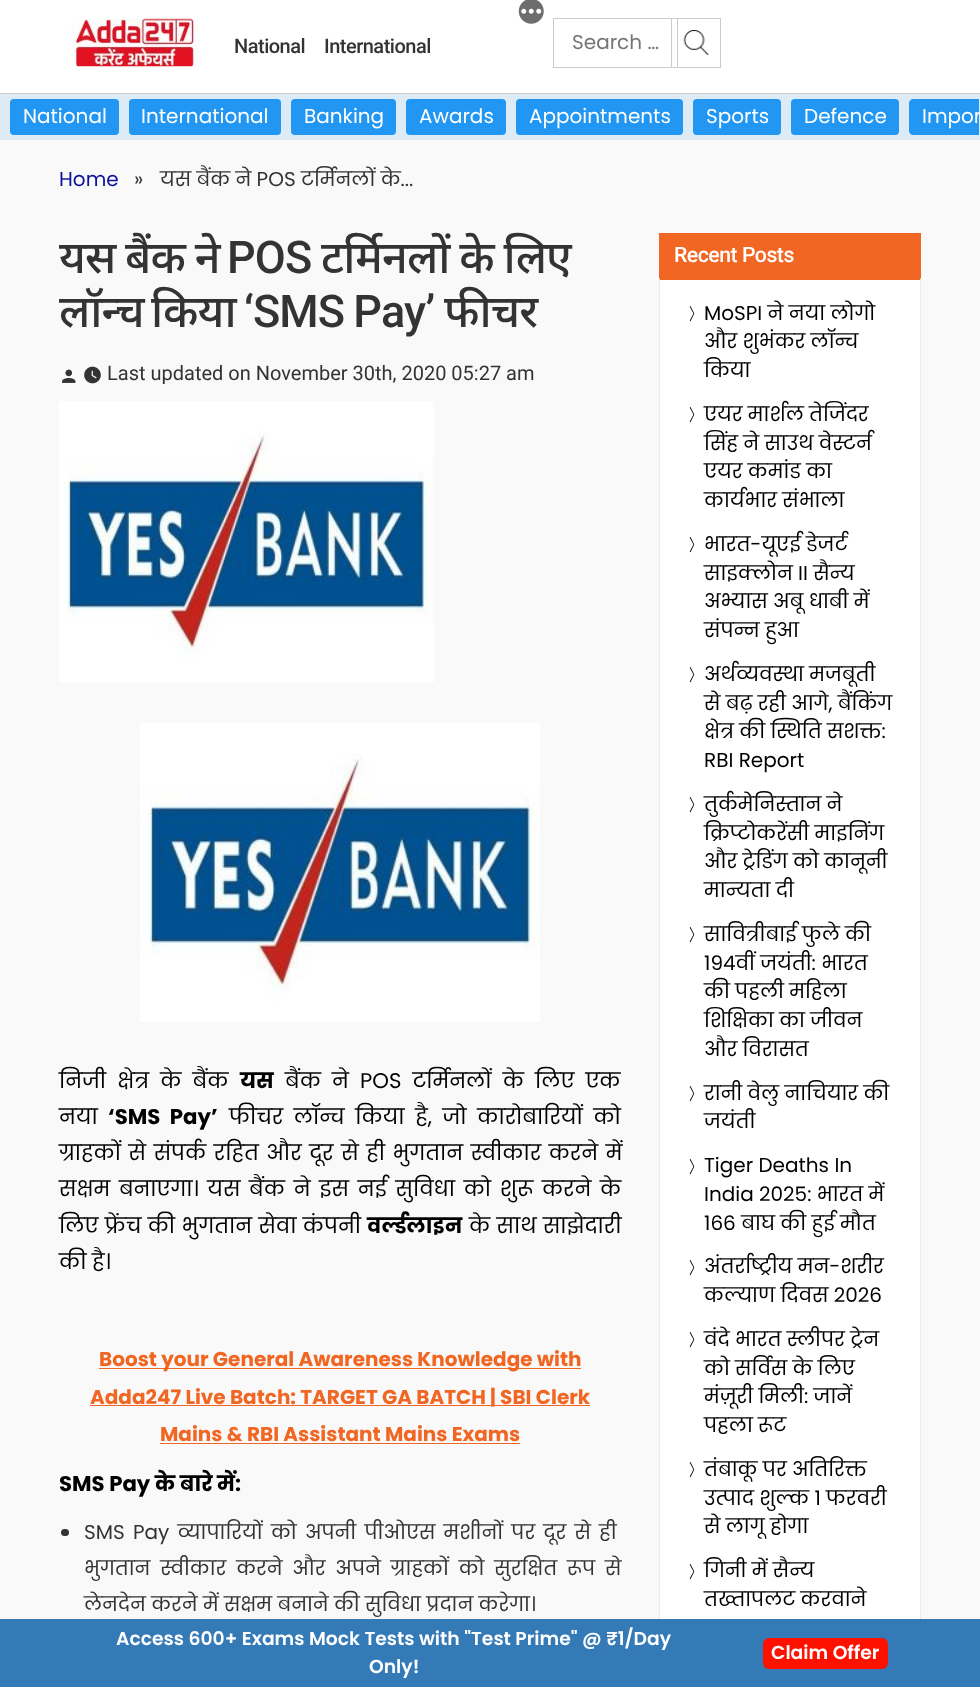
<svg xmlns="http://www.w3.org/2000/svg" xmlns:xlink="http://www.w3.org/1999/xlink" width="980" height="1687" viewBox="0 0 980 1687">
<style>
.cls-1{font:500 20px Roboto;letter-spacing:-0.5px;fill:#333333}
.cls-2{font:20px Poppins;fill:#757575}
.cls-3{font:20px Poppins;fill:#ffffff}
.cls-4{font:20px Poppins;fill:#0d129a}
.cls-5{font:20px Poppins;fill:#333333}
.cls-6{font:500 45px Noto Sans;letter-spacing:-0.9px;fill:#333333}
.cls-7{font:500 45px Roboto;letter-spacing:-0.9px;fill:#333333}
.cls-8{font:20px Roboto;fill:#333333}
.cls-9{font:21.25px Poppins;fill:#000000}
.cls-10{font:bold 21.25px Poppins;fill:#000000}
.cls-11{font:bold 20px Poppins;fill:#f16622}
.cls-12{font:500 21.25px Roboto;letter-spacing:-0.5px;fill:#ffffff}
.cls-13{font:500 18px WenQuanYi Zen Hei;fill:#000000}
.cls-14{font:20px Poppins;fill:#000000}
.cls-15{font:600 18.75px Poppins;fill:#ffffff}
</style>
<rect width="100%" height="100%" fill="#f9f9f9"/>
<rect fill="#ffffff" x="0" y="0" width="980" height="93"/>
<rect fill="#cccccc" x="0" y="93" width="980" height="1"/>
<image xlink:href="image0.png" x="71" y="18" width="129" height="49"/>
<image xlink:href="image1.png" x="518" y="0" width="26" height="24"/>
<rect fill="none" stroke="#cccccc" x="553.5" y="18.5" width="124" height="49"/>
<image xlink:href="image2.png" x="683" y="30" width="26" height="25"/>
<rect fill="none" stroke="#cccccc" x="671.5" y="18.5" width="49" height="49"/>
<rect fill="#ddebf7" x="0" y="94" width="980" height="46"/>
<rect fill="#2196f3" x="10" y="99" width="109" height="36" rx="4"/>
<rect fill="#2196f3" x="129" y="99" width="152" height="36" rx="4"/>
<rect fill="#2196f3" x="291" y="99" width="105" height="36" rx="4"/>
<rect fill="#2196f3" x="406" y="99" width="100" height="36" rx="4"/>
<rect fill="#2196f3" x="516" y="99" width="167" height="36" rx="4"/>
<rect fill="#2196f3" x="693" y="99" width="88" height="36" rx="4"/>
<rect fill="#2196f3" x="791" y="99" width="108" height="36" rx="4"/>
<path fill="#2196f3" d="M913 99H979V135H913C911 135 909 133 909 131V103C909 101 911 99 913 99Z"/>
<image xlink:href="image3.png" x="62" y="369" width="14" height="14"/>
<image xlink:href="image4.png" x="84" y="366" width="17" height="18"/>
<image xlink:href="image5.png" x="59" y="401" width="375" height="281"/>
<image xlink:href="image6.png" x="140" y="723" width="400" height="299"/>
<rect fill="#f16622" x="99" y="1368" width="482" height="1"/>
<rect fill="#f16622" x="90" y="1405" width="500" height="1"/>
<rect fill="#f16622" x="160" y="1443" width="360" height="1"/>
<rect fill="#333333" x="61" y="1529" width="8" height="7" rx="3.5"/>
<rect fill="#f16622" x="659" y="233" width="262" height="45"/>
<rect fill="#ffffff" x="660" y="280" width="260" height="1339"/>
<path fill="#f16622" d="M659 278H921L920 280H660Z"/>
<path fill="#ecebeb" d="M921 278V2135L920 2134V280Z"/>
<path fill="#ecebeb" d="M659 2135V278L660 280V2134Z"/>
<rect fill="#337ab7" x="0" y="1619" width="980" height="68"/>
<rect fill="#ff1100" x="763" y="1638" width="125" height="31" rx="6"/>
<text class="cls-1" x="234" y="53">National</text>
<text class="cls-1" x="324" y="53">International</text>
<text class="cls-2" x="572" y="49">Search …</text>
<text class="cls-3" x="23" y="123">National</text>
<text class="cls-3" x="141" y="123">International</text>
<text class="cls-3" x="304" y="123">Banking</text>
<text class="cls-3" x="419" y="123">Awards</text>
<text class="cls-3" x="529" y="123">Appointments</text>
<text class="cls-3" x="706" y="123">Sports</text>
<text class="cls-3" x="804" y="123">Defence</text>
<text class="cls-3" x="922" y="123">Impor</text>
<text class="cls-4" x="59" y="186">Home</text>
<text class="cls-5" x="134" y="186">»</text>
<text class="cls-5" x="160" y="186">यस बैंक ने POS टर्मिनलों के...</text>
<text class="cls-6" x="59" y="273" word-spacing="-1">यस बैंक ने</text>
<text class="cls-7" x="227" y="273">POS</text>
<text class="cls-6" x="321" y="273" word-spacing="-1">टर्मिनलों के लिए</text>
<text class="cls-6" x="59" y="327">लॉन्च</text>
<text class="cls-6" x="151" y="327">किया</text>
<text class="cls-7" x="244" y="327" word-spacing="-1">‘SMS Pay’</text>
<text class="cls-6" x="444" y="327">फीचर</text>
<text class="cls-8" x="107" y="380">Last updated on November 30th, 2020 05:27 am</text>
<text class="cls-9" x="59" y="1088" word-spacing="5.5">निजी क्षेत्र के बैंक</text>
<text class="cls-10" x="240" y="1088">यस</text>
<text class="cls-9" x="285" y="1088" word-spacing="5.5">बैंक ने POS टर्मिनलों के लिए एक</text>
<text class="cls-9" x="59" y="1124">नया</text>
<text class="cls-10" x="108" y="1124" word-spacing="5">‘SMS Pay’</text>
<text class="cls-9" x="229" y="1124" word-spacing="5">फीचर लॉन्च किया है, जो कारोबारियों को</text>
<text class="cls-9"><tspan x="59" y="1160" word-spacing="2">ग्राहकों से संपर्क रहित और दूर से ही भुगतान स्वीकार करने में</tspan><tspan x="59" y="1196" word-spacing="3.1">सक्षम बनाएगा। यस बैंक ने इस नई सुविधा को शुरू करने के</tspan><tspan x="59" y="1233" word-spacing="0.75">लिए फ्रेंच की भुगतान सेवा कंपनी</tspan></text>
<text class="cls-10" x="367" y="1233">वर्ल्डलाइन</text>
<text class="cls-9" x="469" y="1233" word-spacing="0.75">के साथ साझेदारी</text>
<text class="cls-9" x="59" y="1269">की है।</text>
<text class="cls-11" x="99" y="1366">Boost your General Awareness Knowledge with</text>
<text class="cls-11" x="90" y="1404">Adda247 Live Batch: TARGET GA BATCH | SBI Clerk</text>
<text class="cls-11" x="160" y="1441">Mains &amp; RBI Assistant Mains Exams</text>
<text class="cls-10" x="59" y="1491">SMS Pay के बारे में:</text>
<text class="cls-5"><tspan x="84" y="1539" word-spacing="2.9">SMS Pay व्यापारियों को अपनी पीओएस मशीनों पर दूर से ही</tspan><tspan x="84" y="1575" word-spacing="4.5">भुगतान स्वीकार करने और अपने ग्राहकों को सुरक्षित रूप से</tspan><tspan x="84" y="1611">लेनदेन करने में सक्षम बनाने की सुविधा प्रदान करेगा।</tspan></text>
<text class="cls-12" x="674" y="262">Recent Posts</text>
<text class="cls-13" x="700" y="322" transform="rotate(-90 700 322)">﹀</text>
<text class="cls-14"><tspan x="704" y="320">MoSPI ने नया लोगो</tspan><tspan x="704" y="348">और शुभंकर लॉन्च</tspan><tspan x="704" y="377">किया</tspan></text>
<text class="cls-13" x="700" y="423" transform="rotate(-90 700 423)">﹀</text>
<text class="cls-14"><tspan x="704" y="421">एयर मार्शल तेजिंदर</tspan><tspan x="704" y="450">सिंह ने साउथ वेस्टर्न</tspan><tspan x="704" y="478">एयर कमांड का</tspan><tspan x="704" y="507">कार्यभार संभाला</tspan></text>
<text class="cls-13" x="700" y="553" transform="rotate(-90 700 553)">﹀</text>
<text class="cls-14"><tspan x="704" y="551">भारत-यूएई डेजर्ट</tspan><tspan x="704" y="580">साइक्लोन II सैन्य</tspan><tspan x="704" y="608">अभ्यास अबू धाबी में</tspan><tspan x="704" y="637">संपन्न हुआ</tspan></text>
<text class="cls-13" x="700" y="683" transform="rotate(-90 700 683)">﹀</text>
<text class="cls-14"><tspan x="704" y="681">अर्थव्यवस्था मजबूती</tspan><tspan x="704" y="710">से बढ़ रही आगे, बैंकिंग</tspan><tspan x="704" y="738">क्षेत्र की स्थिति सशक्त:</tspan><tspan x="704" y="767">RBI Report</tspan></text>
<text class="cls-13" x="700" y="813" transform="rotate(-90 700 813)">﹀</text>
<text class="cls-14"><tspan x="704" y="811">तुर्कमेनिस्तान ने</tspan><tspan x="704" y="840">क्रिप्टोकरेंसी माइनिंग</tspan><tspan x="704" y="868">और ट्रेडिंग को कानूनी</tspan><tspan x="704" y="897">मान्यता दी</tspan></text>
<text class="cls-13" x="700" y="943" transform="rotate(-90 700 943)">﹀</text>
<text class="cls-14"><tspan x="704" y="941">सावित्रीबाई फुले की</tspan><tspan x="704" y="970">194वीं जयंती: भारत</tspan><tspan x="704" y="998">की पहली महिला</tspan><tspan x="704" y="1027">शिक्षिका का जीवन</tspan><tspan x="704" y="1056">और विरासत</tspan></text>
<text class="cls-13" x="700" y="1102" transform="rotate(-90 700 1102)">﹀</text>
<text class="cls-14"><tspan x="704" y="1100">रानी वेलु नाचियार की</tspan><tspan x="704" y="1128">जयंती</tspan></text>
<text class="cls-13" x="700" y="1175" transform="rotate(-90 700 1175)">﹀</text>
<text class="cls-14"><tspan x="704" y="1172">Tiger Deaths In</tspan><tspan x="704" y="1201">India 2025: भारत में</tspan><tspan x="704" y="1230">166 बाघ की हुई मौत</tspan></text>
<text class="cls-13" x="700" y="1276" transform="rotate(-90 700 1276)">﹀</text>
<text class="cls-14"><tspan x="704" y="1273">अंतर्राष्ट्रीय मन-शरीर</tspan><tspan x="704" y="1302">कल्याण दिवस 2026</tspan></text>
<text class="cls-13" x="700" y="1348" transform="rotate(-90 700 1348)">﹀</text>
<text class="cls-14"><tspan x="704" y="1346">वंदे भारत स्लीपर ट्रेन</tspan><tspan x="704" y="1375">को सर्विस के लिए</tspan><tspan x="704" y="1403">मंज़ूरी मिली: जानें</tspan><tspan x="704" y="1432">पहला रूट</tspan></text>
<text class="cls-13" x="700" y="1478" transform="rotate(-90 700 1478)">﹀</text>
<text class="cls-14"><tspan x="704" y="1476">तंबाकू पर अतिरिक्त</tspan><tspan x="704" y="1505">उत्पाद शुल्क 1 फरवरी</tspan><tspan x="704" y="1533">से लागू होगा</tspan></text>
<text class="cls-13" x="700" y="1580" transform="rotate(-90 700 1580)">﹀</text>
<text class="cls-14"><tspan x="704" y="1577">गिनी में सैन्य</tspan><tspan x="704" y="1606">तख्तापलट करवाने</tspan></text>
<text class="cls-15" x="116" y="1645">Access 600+ Exams Mock Tests with "Test Prime" @ ₹1/Day</text>
<text class="cls-15" x="369" y="1673">Only!</text>
<text class="cls-15" x="771" y="1659">Claim Offer</text>
</svg>
